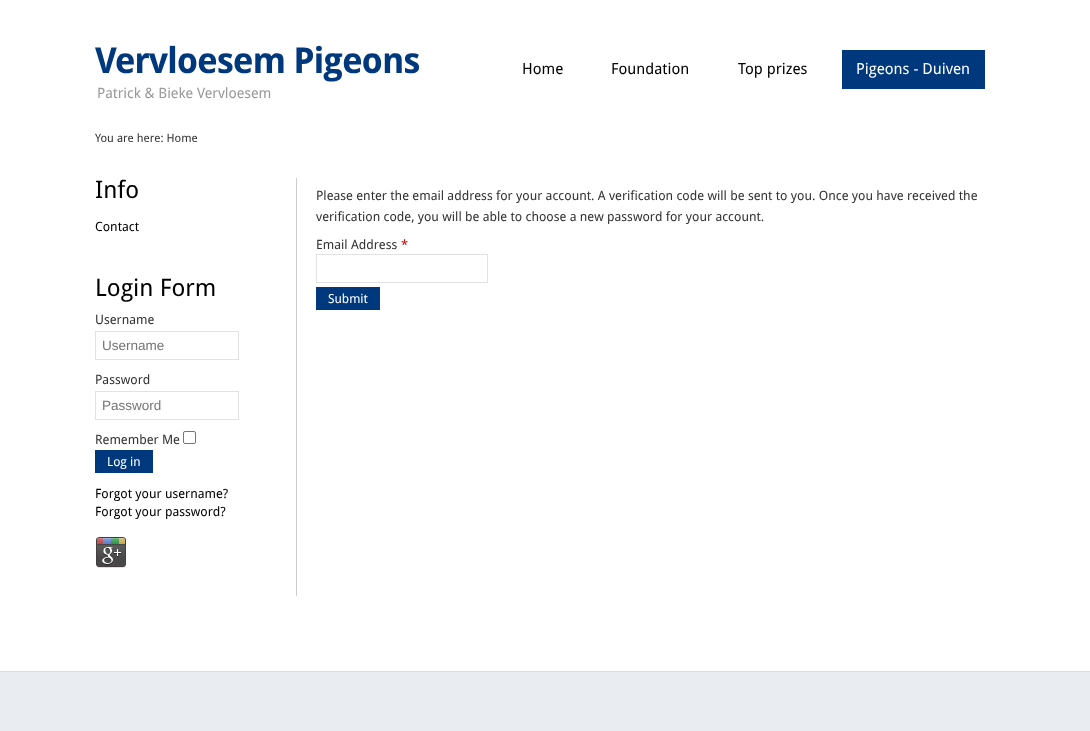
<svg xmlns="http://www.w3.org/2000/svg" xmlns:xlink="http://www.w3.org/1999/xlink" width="1090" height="731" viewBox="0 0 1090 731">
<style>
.cls-1{font:bold 35.75px Droid Sans;letter-spacing:-1.1px;fill:#00387e}
.cls-2{font:14.3px Droid Sans;fill:#999999}
.cls-3{font:15.25px Droid Sans;fill:#000000}
.cls-4{font:15.25px Droid Sans;fill:#ffffff}
.cls-5{font:11.5px Droid Sans;fill:#333333}
.cls-6{font:24px Droid Sans;fill:#000000}
.cls-7{font:12.8px Droid Sans;fill:#000000}
.cls-8{font:12.8px Droid Sans;fill:#333333}
.cls-9{font:13.5px Liberation Sans;fill:#757575}
.cls-10{font:12.5px Droid Sans;fill:#ffffff}
.cls-11{font:12.8px Droid Sans;fill:#cc0000}
</style>
<rect width="100%" height="100%" fill="#e9ecf1"/>
<rect fill="#ffffff" x="0" y="0" width="1090" height="119"/>
<rect fill="#00387e" x="842" y="50" width="143" height="39"/>
<rect fill="#ffffff" x="0" y="119" width="1090" height="552"/>
<rect fill="#cccccc" x="296" y="178" width="1" height="418"/>
<rect fill="none" stroke="#e2e2e2" x="95.5" y="331.5" width="143" height="28"/>
<rect fill="none" stroke="#e2e2e2" x="95.5" y="391.5" width="143" height="28"/>
<rect fill="none" stroke="#767676" x="183.5" y="431.5" width="12" height="12" rx="1.5"/>
<rect fill="#00387e" x="95" y="450" width="58" height="23"/>
<image xlink:href="image0.png" x="96" y="537" width="30" height="31"/>
<rect fill="none" stroke="#e2e2e2" x="316.5" y="254.5" width="171" height="28"/>
<rect fill="#00387e" x="316" y="287" width="64" height="23"/>
<rect fill="#d6e1e6" x="0" y="671" width="1090" height="1"/>
<text class="cls-1" x="95" y="73">Vervloesem Pigeons</text>
<text class="cls-2" x="97" y="98">Patrick &amp; Bieke Vervloesem</text>
<text class="cls-3" x="522" y="74">Home</text>
<text class="cls-3" x="611" y="74">Foundation</text>
<text class="cls-3" x="738" y="74">Top prizes</text>
<text class="cls-4" x="856" y="74">Pigeons - Duiven</text>
<text class="cls-5" x="95" y="142">You are here: Home</text>
<text class="cls-6" x="95" y="198">Info</text>
<text class="cls-7" x="95" y="231">Contact</text>
<text class="cls-6" x="95" y="296">Login Form</text>
<text class="cls-8" x="95" y="324">Username</text>
<text class="cls-9" x="102" y="350">Username</text>
<text class="cls-8" x="95" y="384">Password</text>
<text class="cls-9" x="102" y="410">Password</text>
<text class="cls-8" x="95" y="444">Remember Me</text>
<text class="cls-10" x="107" y="466">Log in</text>
<text class="cls-7"><tspan x="95" y="498">Forgot your username?</tspan><tspan x="95" y="516">Forgot your password?</tspan></text>
<text class="cls-8"><tspan x="316" y="200">Please enter the email address for your account. A verification code will be sent to you. Once you have received the</tspan><tspan x="316" y="221">verification code, you will be able to choose a new password for your account.</tspan></text>
<text class="cls-8" x="316" y="249">Email Address</text>
<text class="cls-11" x="401" y="249">*</text>
<text class="cls-10" x="328" y="303">Submit</text>
</svg>
